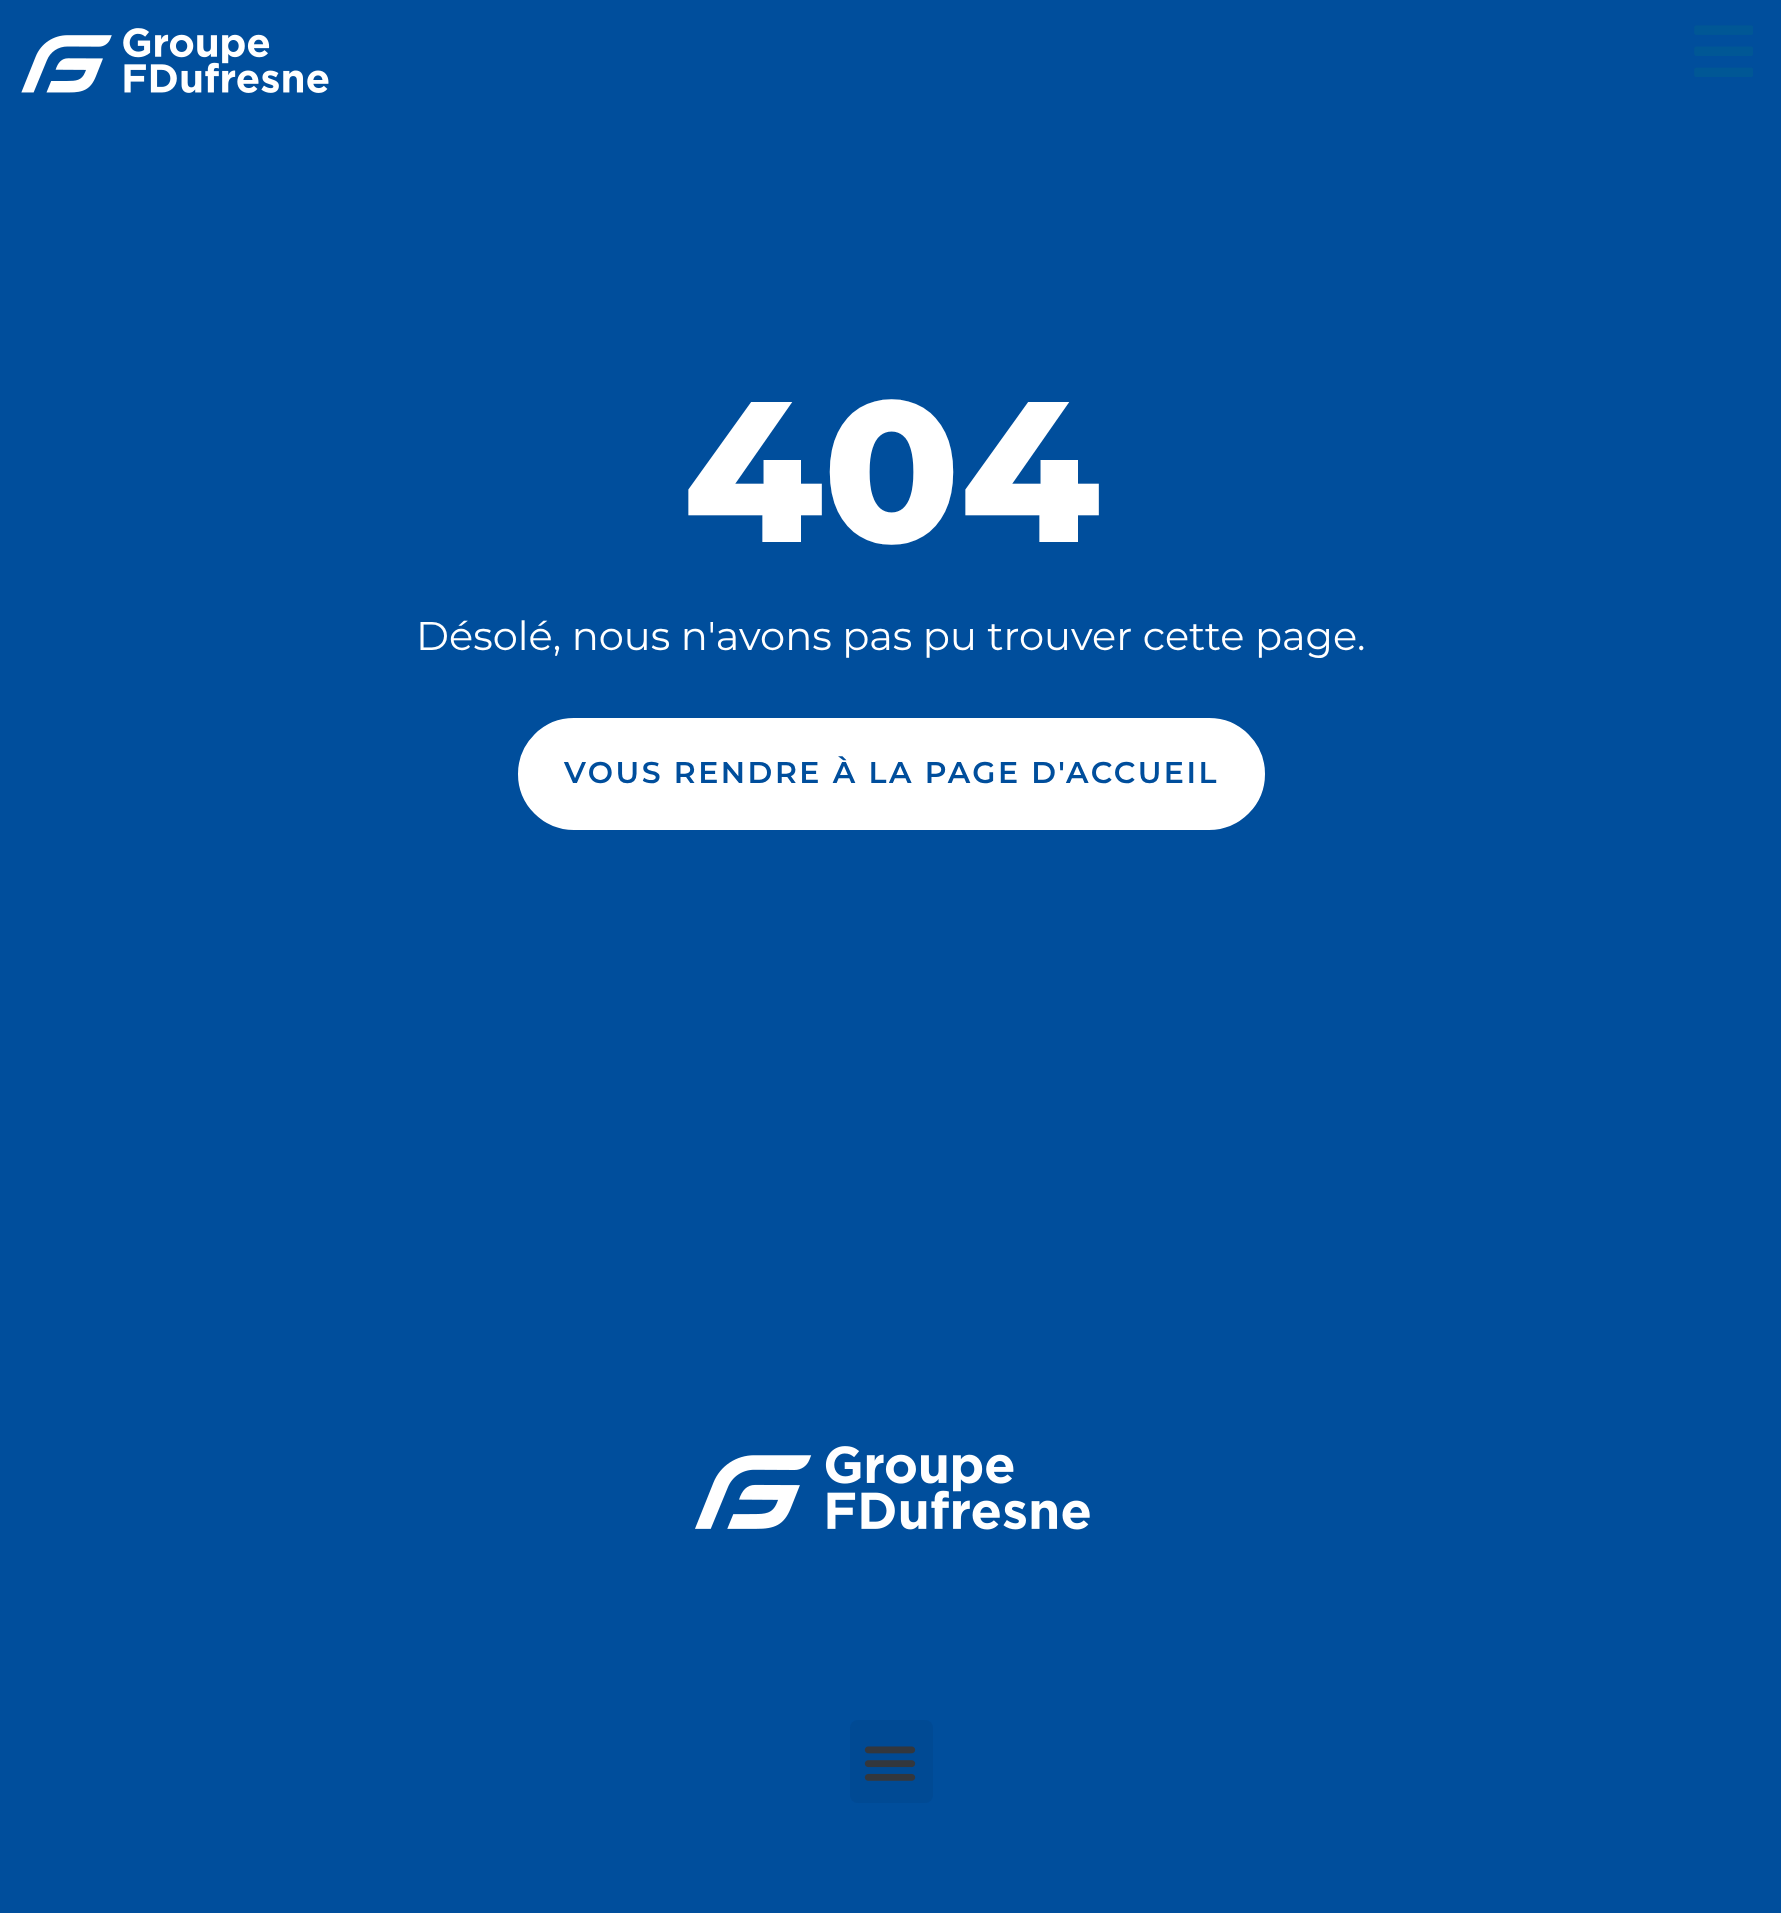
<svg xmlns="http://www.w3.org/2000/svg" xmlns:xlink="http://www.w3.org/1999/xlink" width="1781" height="1913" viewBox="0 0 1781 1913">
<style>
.cls-1{font:800 200px Montserrat;fill:#ffffff}
.cls-2{font:40px Montserrat;fill:#ffffff}
.cls-3{font:600 30px Montserrat;letter-spacing:2.5px;fill:#004e9c}
</style>
<rect width="100%" height="100%" fill="#004e9c"/>
<image xlink:href="image0.png" x="21" y="28" width="308" height="65"/>
<image xlink:href="image1.png" x="1694" y="25" width="59" height="52"/>
<rect fill="#ffffff" stroke="#ffffff" stroke-width="5" x="520.5" y="720.5" width="742" height="107" rx="53.5"/>
<image xlink:href="image2.png" x="695" y="1446" width="395" height="84"/>
<rect fill="#004a94" x="850" y="1720" width="83" height="83" rx="8"/>
<image xlink:href="image3.png" x="864" y="1746" width="52" height="35"/>
<text class="cls-1" x="683" y="542">404</text>
<text class="cls-2" x="416" y="650">Désolé, nous n'avons pas pu trouver cette page.</text>
<text class="cls-3" x="564" y="783">VOUS RENDRE À LA PAGE D'ACCUEIL</text>
</svg>
